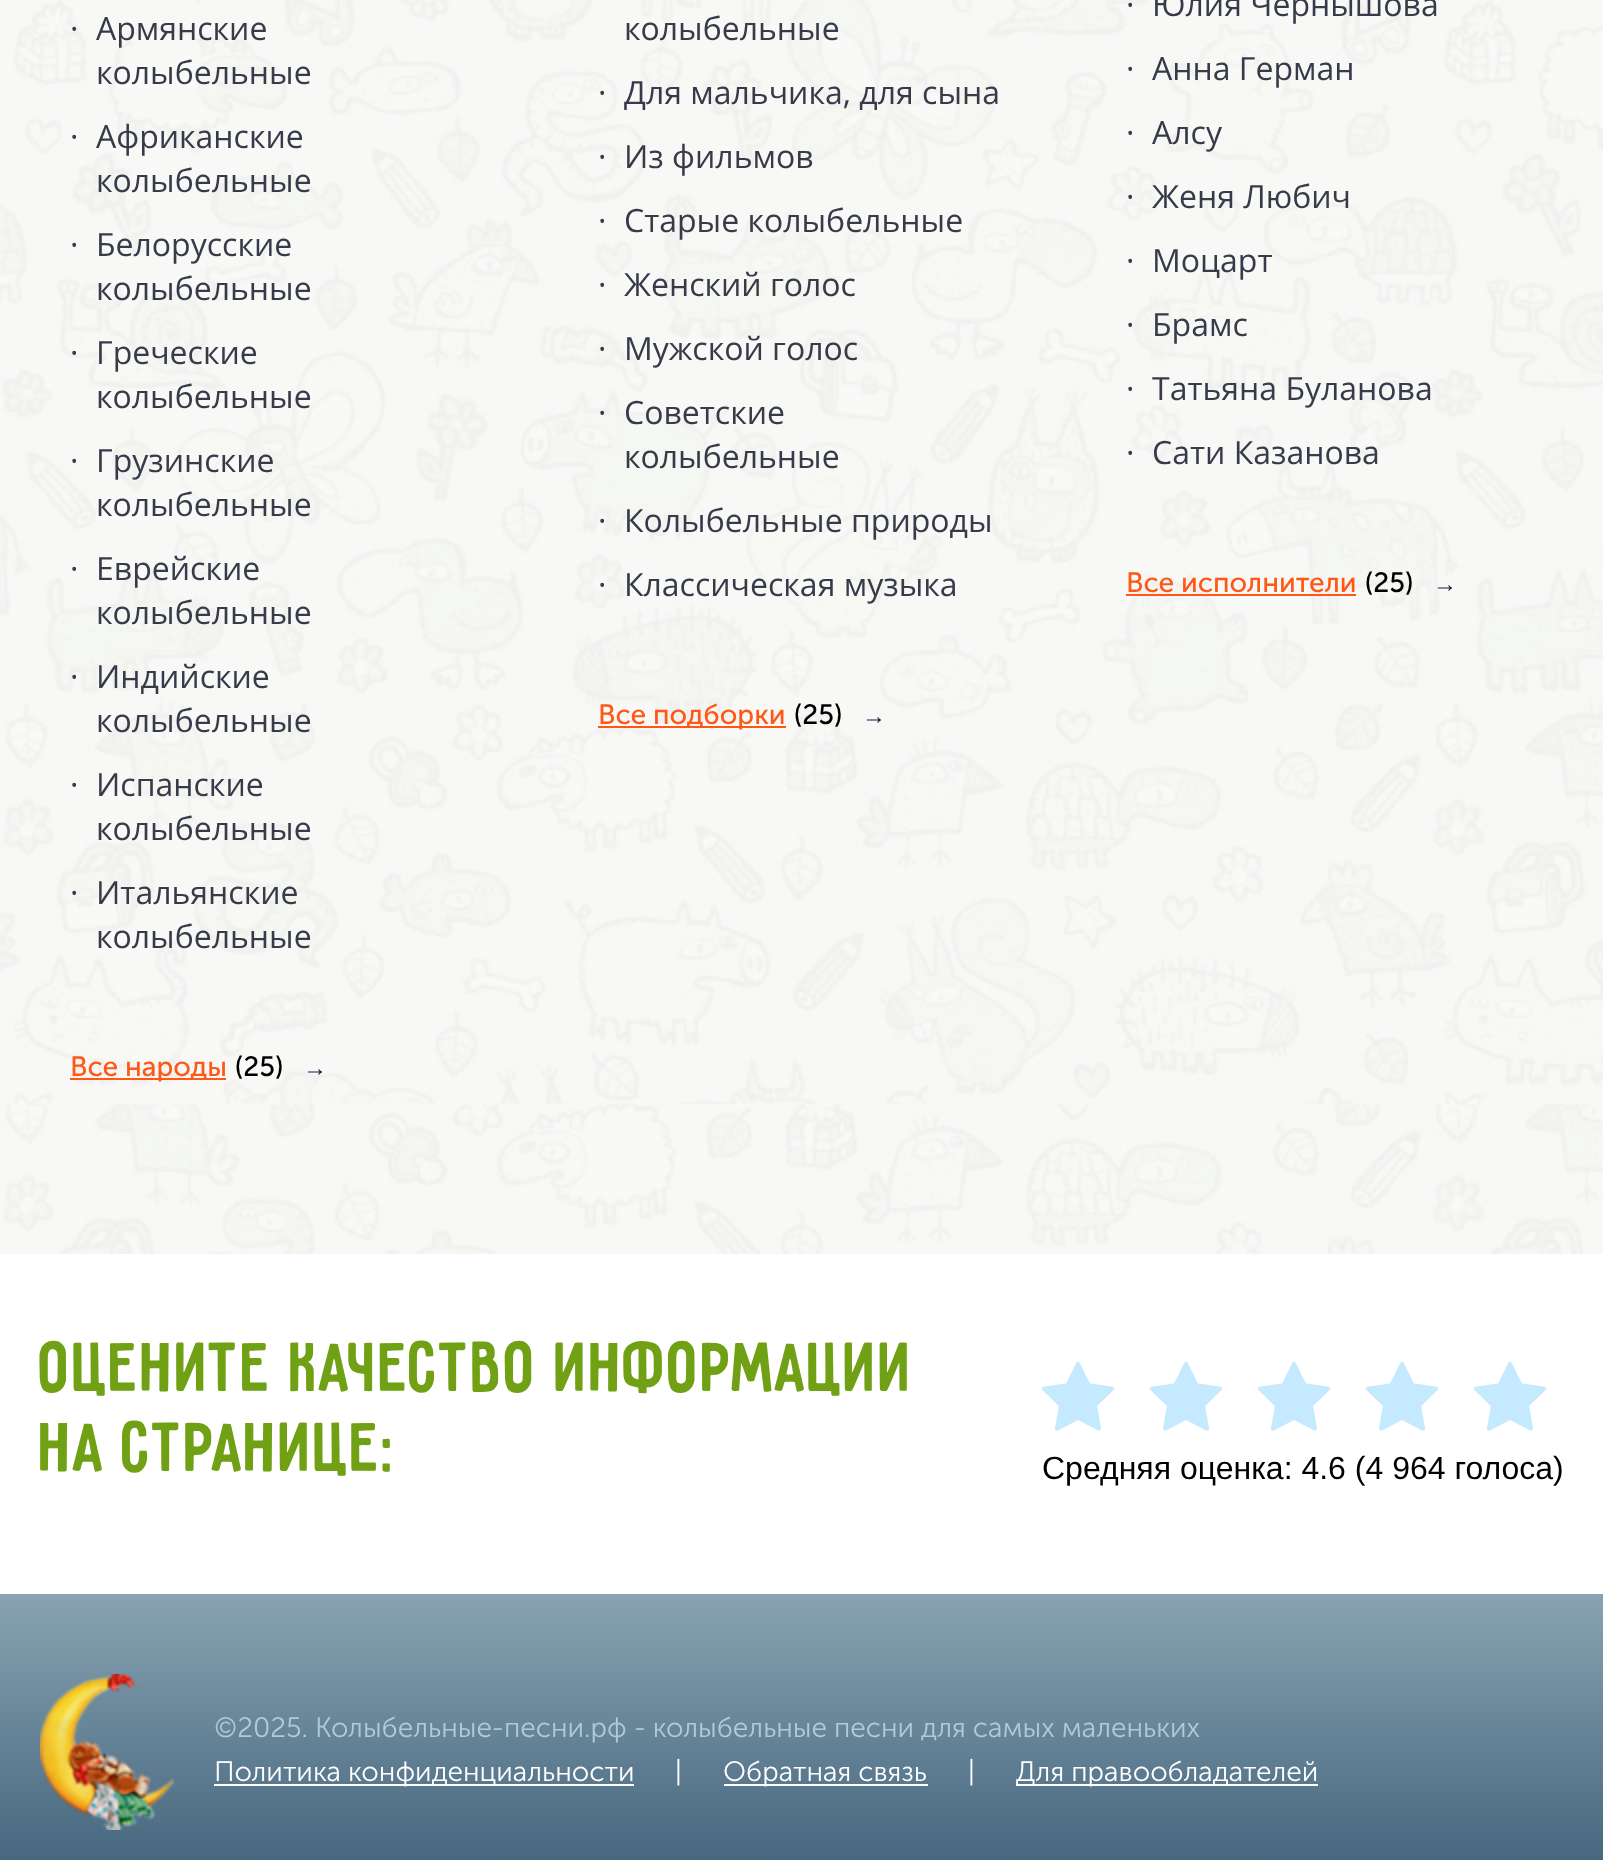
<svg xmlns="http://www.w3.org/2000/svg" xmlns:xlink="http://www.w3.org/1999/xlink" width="1603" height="1860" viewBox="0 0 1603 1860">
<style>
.cls-1{font:32px Open Sans;fill:#363a49}
.cls-2{font:28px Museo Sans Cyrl;fill:#ff5715}
.cls-3{font:28px Museo Sans Cyrl;fill:#000000}
.cls-4{font:24px Liberation Serif;fill:#0d1943}
.cls-5{font:76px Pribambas;fill:#70a013}
.cls-6{font:32px Liberation Sans;fill:#000000}
.cls-7{font:300 28px Museo Sans Cyrl;fill:#b1cad7}
.cls-8{font:300 28px Museo Sans Cyrl;fill:#ffffff}
</style>
<defs>
<linearGradient id="g1" gradientUnits="userSpaceOnUse" x1="802" y1="1594" x2="802" y2="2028"><stop offset="0" stop-color="#89a3b2"/><stop offset="1" stop-color="#1c425f"/></linearGradient>
</defs>
<rect width="100%" height="100%" fill="#ffffff"/>
<image xlink:href="image0.png" x="0" y="0" width="1603" height="1254"/>
<rect fill="#ff5715" x="70" y="1078" width="156" height="2"/>
<rect fill="#ff5715" x="598" y="726" width="188" height="2"/>
<rect fill="#ff5715" x="1126" y="594" width="230" height="2"/>
<image xlink:href="image1.png" x="1042" y="1362" width="72" height="69"/>
<image xlink:href="image1.png" x="1150" y="1362" width="72" height="69"/>
<image xlink:href="image1.png" x="1258" y="1362" width="72" height="69"/>
<image xlink:href="image1.png" x="1366" y="1362" width="72" height="69"/>
<image xlink:href="image1.png" x="1474" y="1362" width="72" height="69"/>
<rect fill="url(#g1)" x="0" y="1594" width="1603" height="266"/>
<image xlink:href="image2.png" x="40" y="1674" width="134" height="156"/>
<rect fill="#ffffff" x="214" y="1784" width="420" height="2"/>
<rect fill="#ffffff" x="724" y="1784" width="204" height="2"/>
<rect fill="#ffffff" x="1016" y="1784" width="302" height="2"/>
<text class="cls-1" x="70" y="40">·</text>
<text class="cls-1"><tspan x="96" y="40">Армянские</tspan><tspan x="96" y="84">колыбельные</tspan></text>
<text class="cls-1" x="70" y="148">·</text>
<text class="cls-1"><tspan x="96" y="148">Африканские</tspan><tspan x="96" y="192">колыбельные</tspan></text>
<text class="cls-1" x="70" y="256">·</text>
<text class="cls-1"><tspan x="96" y="256">Белорусские</tspan><tspan x="96" y="300">колыбельные</tspan></text>
<text class="cls-1" x="70" y="364">·</text>
<text class="cls-1"><tspan x="96" y="364">Греческие</tspan><tspan x="96" y="408">колыбельные</tspan></text>
<text class="cls-1" x="70" y="472">·</text>
<text class="cls-1"><tspan x="96" y="472">Грузинские</tspan><tspan x="96" y="516">колыбельные</tspan></text>
<text class="cls-1" x="70" y="580">·</text>
<text class="cls-1"><tspan x="96" y="580">Еврейские</tspan><tspan x="96" y="624">колыбельные</tspan></text>
<text class="cls-1" x="70" y="688">·</text>
<text class="cls-1"><tspan x="96" y="688">Индийские</tspan><tspan x="96" y="732">колыбельные</tspan></text>
<text class="cls-1" x="70" y="796">·</text>
<text class="cls-1"><tspan x="96" y="796">Испанские</tspan><tspan x="96" y="840">колыбельные</tspan></text>
<text class="cls-1" x="70" y="904">·</text>
<text class="cls-1"><tspan x="96" y="904">Итальянские</tspan><tspan x="96" y="948">колыбельные</tspan></text>
<text class="cls-2" x="70" y="1076">Все народы</text>
<text class="cls-3" x="235" y="1076">(25)</text>
<text class="cls-4" x="303" y="1076">→</text>
<text class="cls-1" x="624" y="40">колыбельные</text>
<text class="cls-1" x="598" y="104">·</text>
<text class="cls-1" x="624" y="104">Для мальчика, для сына</text>
<text class="cls-1" x="598" y="168">·</text>
<text class="cls-1" x="624" y="168">Из фильмов</text>
<text class="cls-1" x="598" y="232">·</text>
<text class="cls-1" x="624" y="232">Старые колыбельные</text>
<text class="cls-1" x="598" y="296">·</text>
<text class="cls-1" x="624" y="296">Женский голос</text>
<text class="cls-1" x="598" y="360">·</text>
<text class="cls-1" x="624" y="360">Мужской голос</text>
<text class="cls-1" x="598" y="424">·</text>
<text class="cls-1"><tspan x="624" y="424">Советские</tspan><tspan x="624" y="468">колыбельные</tspan></text>
<text class="cls-1" x="598" y="532">·</text>
<text class="cls-1" x="624" y="532">Колыбельные природы</text>
<text class="cls-1" x="598" y="596">·</text>
<text class="cls-1" x="624" y="596">Классическая музыка</text>
<text class="cls-2" x="598" y="724">Все подборки</text>
<text class="cls-3" x="794" y="724">(25)</text>
<text class="cls-4" x="862" y="724">→</text>
<text class="cls-1" x="1126" y="16">·</text>
<text class="cls-1" x="1152" y="16">Юлия Чернышова</text>
<text class="cls-1" x="1126" y="80">·</text>
<text class="cls-1" x="1152" y="80">Анна Герман</text>
<text class="cls-1" x="1126" y="144">·</text>
<text class="cls-1" x="1152" y="144">Алсу</text>
<text class="cls-1" x="1126" y="208">·</text>
<text class="cls-1" x="1152" y="208">Женя Любич</text>
<text class="cls-1" x="1126" y="272">·</text>
<text class="cls-1" x="1152" y="272">Моцарт</text>
<text class="cls-1" x="1126" y="336">·</text>
<text class="cls-1" x="1152" y="336">Брамс</text>
<text class="cls-1" x="1126" y="400">·</text>
<text class="cls-1" x="1152" y="400">Татьяна Буланова</text>
<text class="cls-1" x="1126" y="464">·</text>
<text class="cls-1" x="1152" y="464">Сати Казанова</text>
<text class="cls-2" x="1126" y="592">Все исполнители</text>
<text class="cls-3" x="1365" y="592">(25)</text>
<text class="cls-4" x="1433" y="592">→</text>
<text class="cls-5"><tspan x="40" y="1391">ОЦЕНИТЕ КАЧЕСТВО ИНФОРМАЦИИ</tspan><tspan x="40" y="1471">НА СТРАНИЦЕ:</tspan></text>
<text class="cls-6" x="1042" y="1479">Средняя оценка: 4.6 (4 964 голоса)</text>
<text class="cls-7" x="214" y="1737">©2025. Колыбельные-песни.рф - колыбельные песни для самых маленьких</text>
<text class="cls-8" x="214" y="1781">Политика конфиденциальности</text>
<text class="cls-8" x="675" y="1781">|</text>
<text class="cls-8" x="723" y="1781">Обратная связь</text>
<text class="cls-8" x="968" y="1781">|</text>
<text class="cls-8" x="1016" y="1781">Для правообладателей</text>
</svg>
